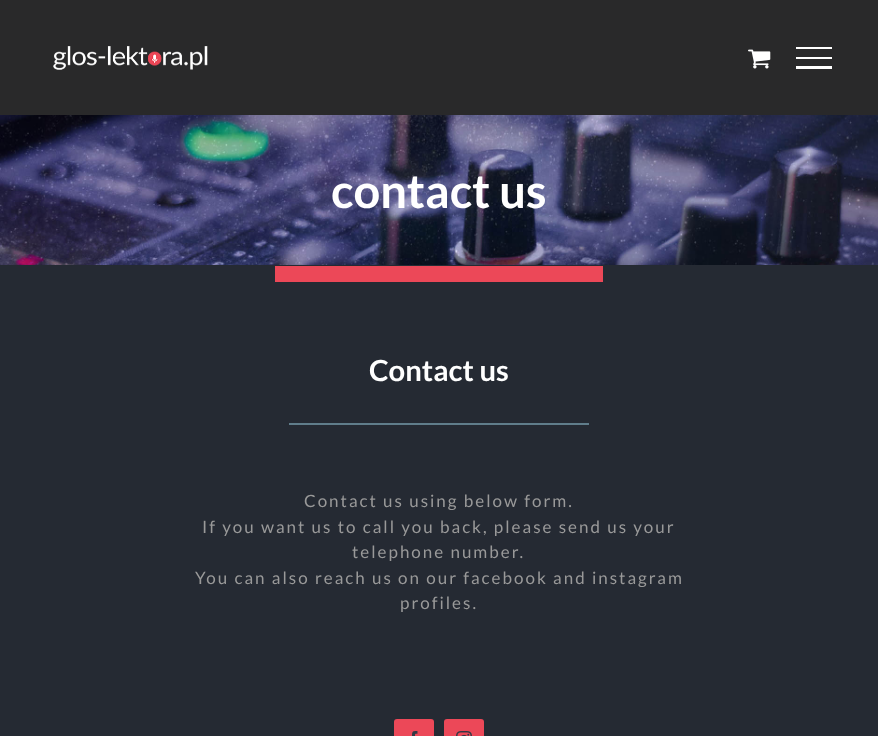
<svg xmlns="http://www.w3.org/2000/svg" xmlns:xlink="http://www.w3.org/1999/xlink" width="878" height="736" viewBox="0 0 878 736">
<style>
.cls-1{font:bold 47px Lato;fill:#ffffff}
.cls-2{font:bold 29.25px Lato;fill:#ffffff}
.cls-3{font:17px Lato;letter-spacing:2px;fill:#999999}
</style>
<rect width="100%" height="100%" fill="#252a33"/>
<image xlink:href="image2.png" x="0" y="115" width="878" height="150"/>
<rect fill="#000000" fill-opacity="0.14" filter="blur(25px)" x="2" y="12" width="874" height="111"/>
<rect fill="#29292a" x="0" y="0" width="878" height="115"/>
<image xlink:href="image0.png" x="53" y="46" width="155" height="24"/>
<image xlink:href="image1.png" x="748" y="49" width="23" height="20"/>
<rect fill="#ffffff" x="796" y="47" width="36" height="2"/>
<rect fill="#ffffff" x="796" y="57" width="36" height="2"/>
<rect fill="#ffffff" x="796" y="66" width="36" height="3"/>
<rect fill="#ec4858" x="275" y="266" width="328" height="16"/>
<rect fill="#607d8b" x="289" y="423" width="300" height="2"/>
<rect fill="#ec4858" x="394" y="719" width="40" height="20" rx="3"/>
<image xlink:href="image3.png" x="412" y="731" width="6" height="5"/>
<rect fill="#ec4858" x="444" y="719" width="40" height="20" rx="3"/>
<image xlink:href="image4.png" x="456" y="731" width="16" height="5"/>
<text class="cls-1" x="331" y="208">contact us</text>
<text class="cls-2" x="369" y="381">Contact us</text>
<text class="cls-3" x="304" y="507">Contact us using below form.</text>
<text class="cls-3" x="202" y="533">If you want us to call you back, please send us your</text>
<text class="cls-3" x="352" y="558">telephone number.</text>
<text class="cls-3" x="195" y="584">You can also reach us on our facebook and instagram</text>
<text class="cls-3" x="400" y="609">profiles.</text>
</svg>
